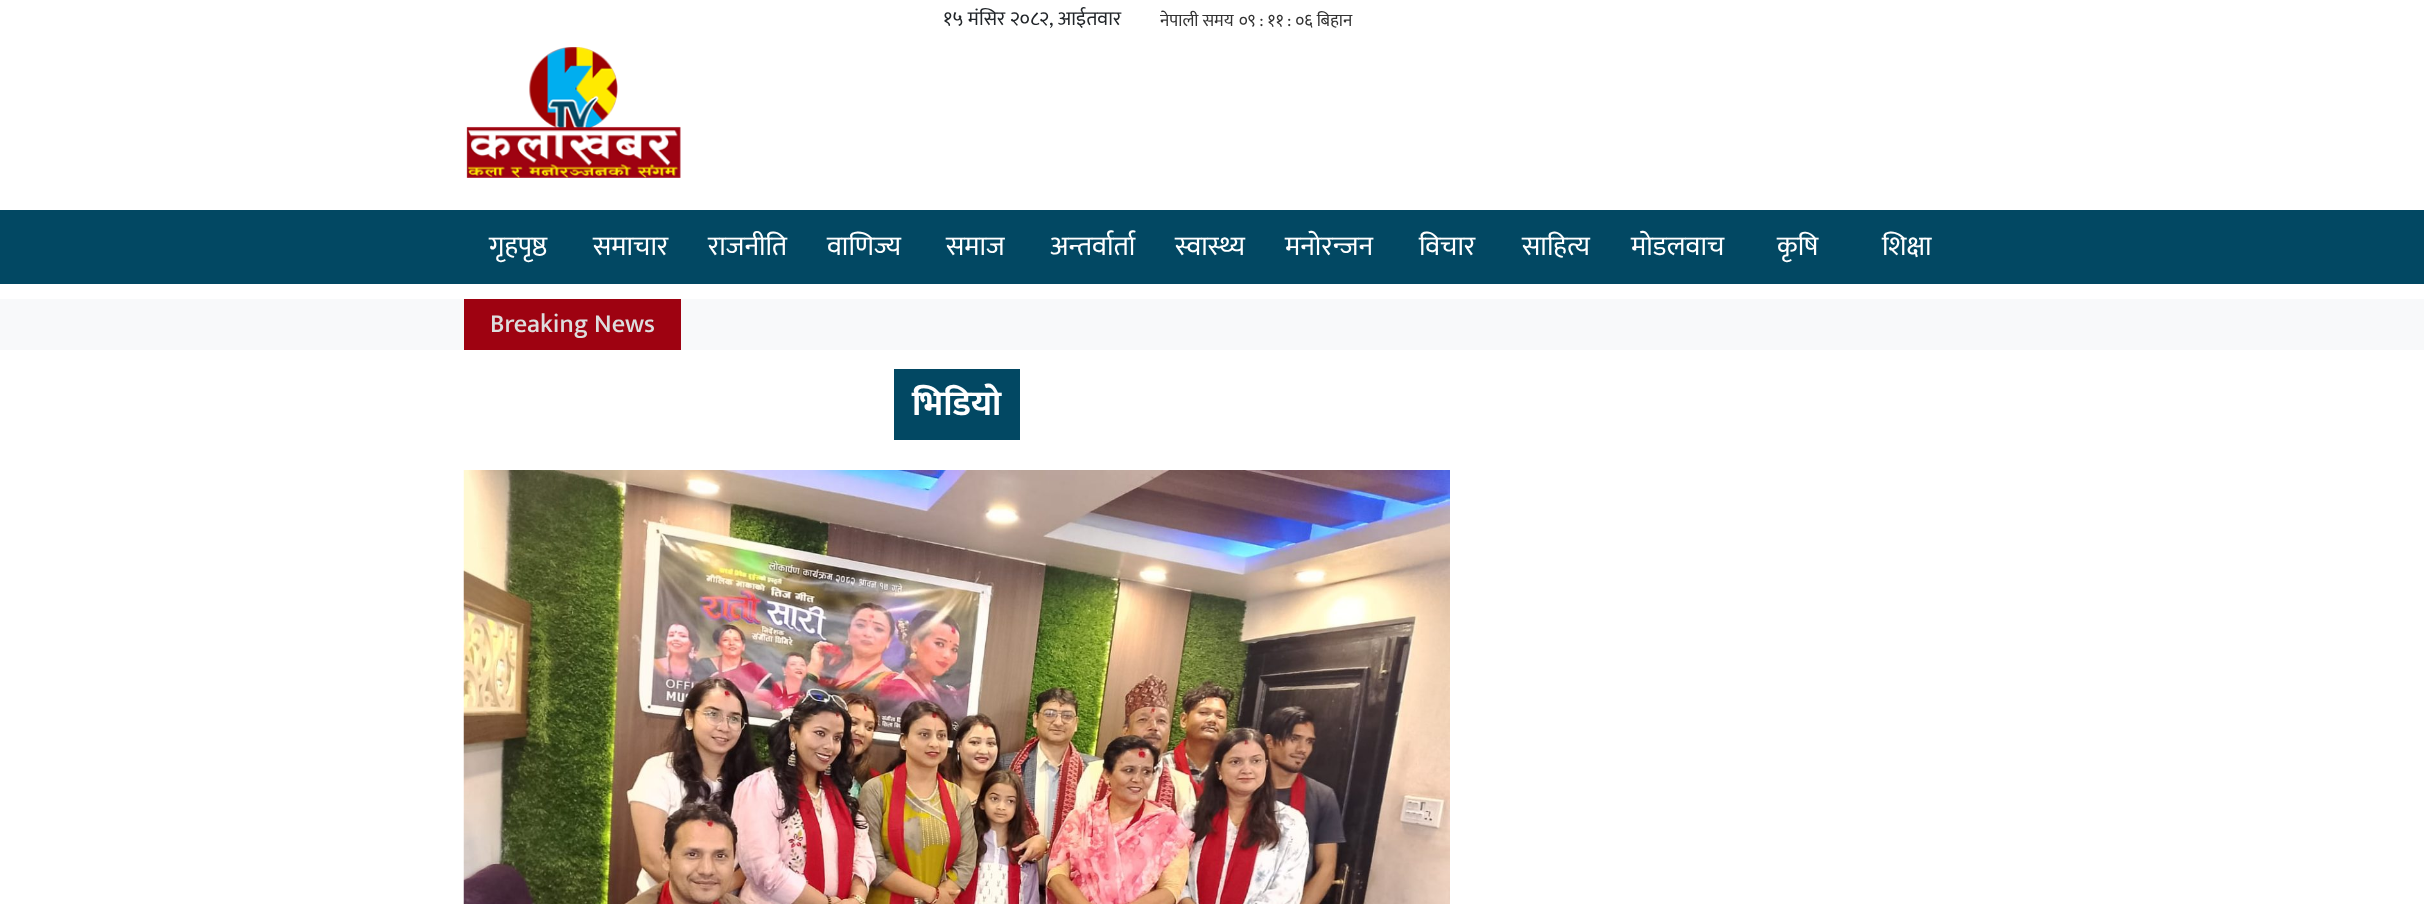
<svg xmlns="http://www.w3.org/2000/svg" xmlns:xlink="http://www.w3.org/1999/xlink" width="2424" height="904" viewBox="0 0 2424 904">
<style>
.cls-1{font:20px Mukta;fill:#212529}
.cls-2{font:27.5px Mukta;fill:#ffffff}
.cls-3{font:500 26.25px Mukta;fill:#dddddd}
.cls-4{font:bold 35px Mukta;fill:#ffffff}
</style>
<rect width="100%" height="100%" fill="#ffffff"/>
<image xlink:href="image0.png" x="1160" y="10" width="193" height="18"/>
<image xlink:href="image1.png" x="466" y="47" width="215" height="131"/>
<rect fill="#024863" x="0" y="210" width="2424" height="74"/>
<rect fill="#f8f9fa" x="0" y="299" width="2424" height="51"/>
<rect fill="#9e0211" x="464" y="299" width="217" height="51"/>
<rect fill="#024863" x="894" y="369" width="126" height="71"/>
<image xlink:href="image2.png" x="463" y="470" width="987" height="434"/>
<text class="cls-1" x="943" y="25">१५ मंसिर २०८२, आईतवार</text>
<text class="cls-2" x="489" y="255">गृहपृष्ठ</text>
<text class="cls-2" x="593" y="255">समाचार</text>
<text class="cls-2" x="708" y="255">राजनीति</text>
<text class="cls-2" x="827" y="255">वाणिज्य</text>
<text class="cls-2" x="946" y="255">समाज</text>
<text class="cls-2" x="1050" y="255">अन्तर्वार्ता</text>
<text class="cls-2" x="1175" y="255">स्वास्थ्य</text>
<text class="cls-2" x="1285" y="255">मनोरन्जन</text>
<text class="cls-2" x="1419" y="255">विचार</text>
<text class="cls-2" x="1522" y="255">साहित्य</text>
<text class="cls-2" x="1631" y="255">मोडलवाच</text>
<text class="cls-2" x="1777" y="255">कृषि</text>
<text class="cls-2" x="1882" y="255">शिक्षा</text>
<text class="cls-3" x="490" y="332">Breaking News</text>
<text class="cls-4" x="912" y="415">भिडियो</text>
</svg>
